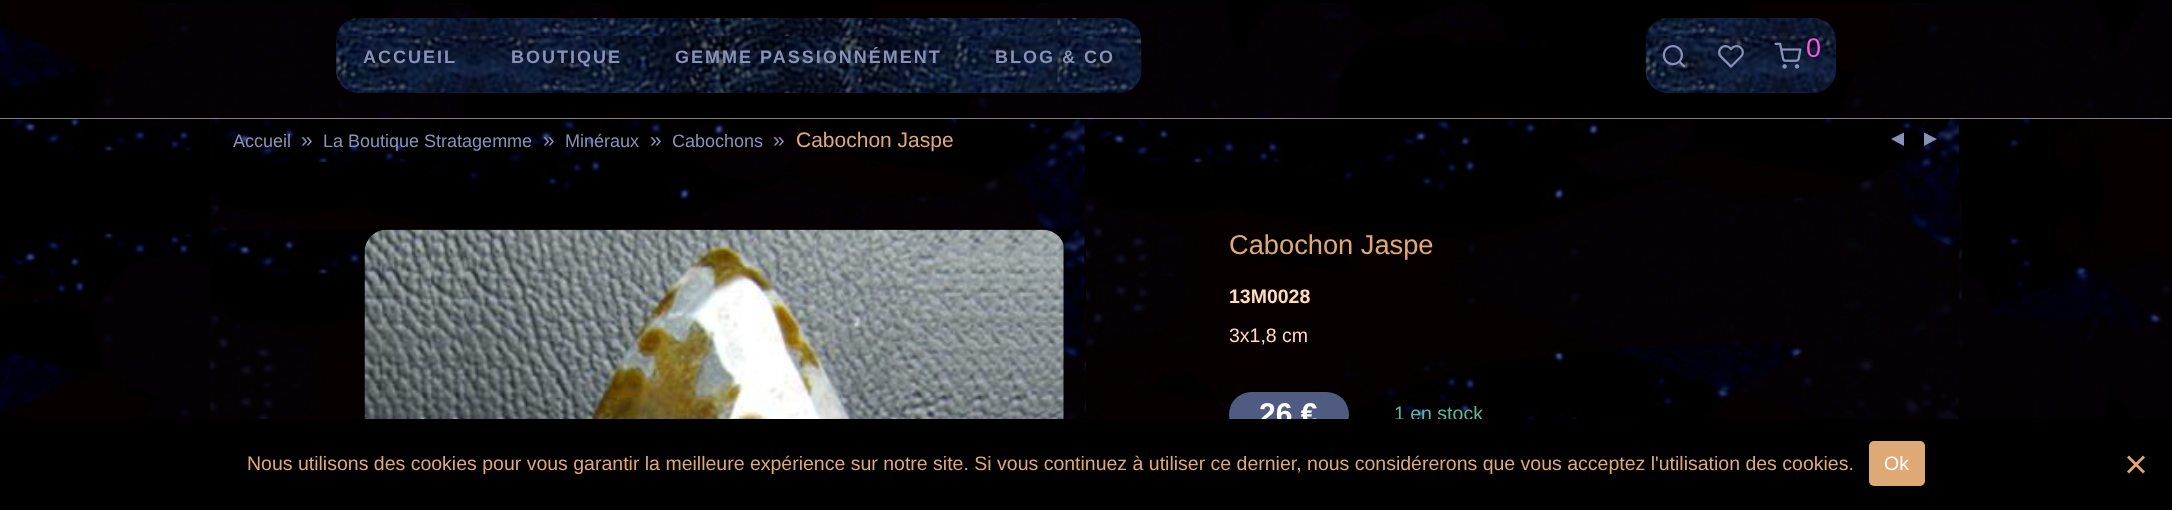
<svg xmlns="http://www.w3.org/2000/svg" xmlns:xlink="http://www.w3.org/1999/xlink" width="2172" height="510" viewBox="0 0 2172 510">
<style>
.cls-1{font:bold 18px Liberation Sans;letter-spacing:2px;fill:#8992b6}
.cls-2{font:27px Liberation Sans;fill:#fa5ad8}
.cls-3{font:18px Liberation Sans;fill:#8992b6}
.cls-4{font:21px Liberation Sans;fill:#8992b6}
.cls-5{font:21px Liberation Sans;fill:#dfa975}
.cls-6{font:27.25px Liberation Sans;fill:#dfa975}
.cls-7{font:bold 19.5px Liberation Sans;fill:#ffdbb7}
.cls-8{font:19.5px Liberation Sans;fill:#ffdbb7}
.cls-9{font:bold 30px Liberation Sans;fill:#ffffff}
.cls-10{font:19.5px Liberation Sans;fill:#63b798}
.cls-11{font:19.5px Liberation Sans;fill:#dfa975}
.cls-12{font:19.5px Liberation Sans;fill:#ffffff}
</style>
<rect width="100%" height="100%" fill="#ffffff"/>
<image xlink:href="image0.png" x="0" y="119" width="2172" height="300"/>
<image xlink:href="image1.png" x="0" y="0" width="2172" height="119"/>
<rect fill="#000000" x="126" y="-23" width="1920" height="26" rx="23"/>
<image xlink:href="image2.png" x="336" y="18" width="806" height="75"/>
<image xlink:href="image3.png" x="1645" y="18" width="191" height="75"/>
<image xlink:href="image4.png" x="1662" y="45" width="24" height="23"/>
<image xlink:href="image5.png" x="1718" y="45" width="26" height="23"/>
<image xlink:href="image6.png" x="1774" y="42" width="28" height="27"/>
<image xlink:href="image7.png" x="210" y="119" width="1752" height="300"/>
<path fill="#8992b6" d="M1904 132.5V146L1891 139ZM1924 132.5V146L1937 139Z"/>
<image xlink:href="image8.png" x="210" y="229" width="876" height="190"/>
<image xlink:href="image9.png" x="364" y="229" width="700" height="190"/>
<rect fill="#505b81" x="1229" y="392" width="120" height="45" rx="22.5"/>
<text class="cls-1" x="363" y="63">ACCUEIL</text>
<text class="cls-1" x="511" y="63">BOUTIQUE</text>
<text class="cls-1" x="675" y="63">GEMME PASSIONNÉMENT</text>
<text class="cls-1" x="995" y="63">BLOG &amp; CO</text>
<text class="cls-2" x="1806" y="57">0</text>
<text class="cls-3" x="233" y="147">Accueil</text>
<text class="cls-4" x="301" y="147">»</text>
<text class="cls-3" x="323" y="147">La Boutique Stratagemme</text>
<text class="cls-4" x="543" y="147">»</text>
<text class="cls-3" x="565" y="147">Minéraux</text>
<text class="cls-4" x="650" y="147">»</text>
<text class="cls-3" x="672" y="147">Cabochons</text>
<text class="cls-4" x="773" y="147">»</text>
<text class="cls-5" x="796" y="147">Cabochon Jaspe</text>
<text class="cls-6" x="1229" y="254">Cabochon Jaspe</text>
<text class="cls-7" x="1229" y="303">13M0028</text>
<text class="cls-8" x="1229" y="342">3x1,8 cm</text>
<text class="cls-9" x="1259" y="424">26 €</text>
<text class="cls-10" x="1394" y="420">1 en stock</text>
<rect fill="#000000" x="0" y="419" width="2172" height="91"/>
<text class="cls-11" x="247" y="470">Nous utilisons des cookies pour vous garantir la meilleure expérience sur notre site. Si vous continuez à utiliser ce dernier, nous considérerons que vous acceptez l'utilisation des cookies.</text>
<rect fill="#dfa975" x="1869" y="441" width="56" height="45" rx="5"/>
<text class="cls-12" x="1884" y="470">Ok</text>
<path fill="#dfa975" d="M2143 455.5L2145 457.5L2129 473.5L2127 471.5Z"/>
<path fill="#dfa975" d="M2127 457.5L2129 455.5L2145 471.5L2143 473.5Z"/>
</svg>
